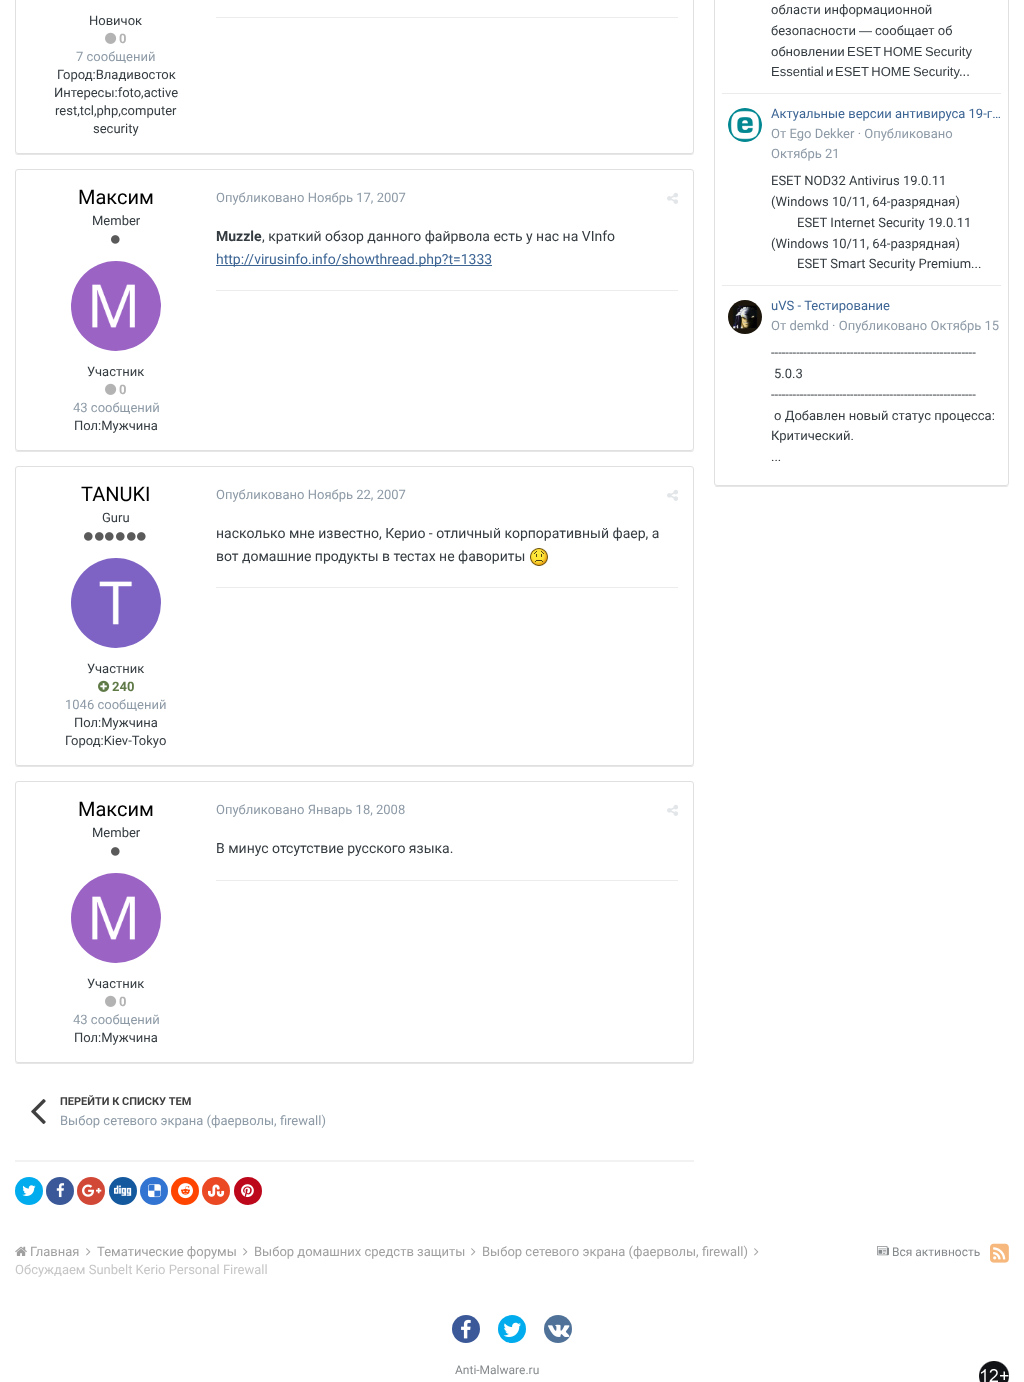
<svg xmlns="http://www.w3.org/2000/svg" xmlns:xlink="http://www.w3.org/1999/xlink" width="1024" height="1382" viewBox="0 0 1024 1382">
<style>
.cls-1{font:13px Roboto;fill:#353c41}
.cls-2{font:bold 13px Roboto;fill:#b3b3b3}
.cls-3{font:13px Roboto;fill:#8d9aa6}
.cls-4{font:20px Roboto;fill:#000000}
.cls-5{font:bold 14px Roboto;fill:#353c41}
.cls-6{font:14px Roboto;fill:#353c41}
.cls-7{font:14px Roboto;fill:#3d6594}
.cls-8{font:bold 13px Roboto;fill:#5f7a47}
.cls-9{font:bold 11px Roboto;fill:#404040}
.cls-10{font:13px Liberation Sans;fill:#353c41}
.cls-11{font:13px Roboto;fill:#3d6594}
.cls-12{font:13px Roboto;fill:#a0a0a0}
.cls-13{font:13px Roboto;fill:#c6c6c6}
.cls-14{font:12px Roboto;fill:#868a8d}
</style>
<rect width="100%" height="100%" fill="#ffffff"/>
<path fill="#e6e6e6" d="M15 151V152C15 154 16 155 18 155H691C693 155 694 154 694 152V151C694 153 693 154 691 154H18C16 154 15 153 15 151Z"/>
<rect fill="#ffffff" stroke="#e0e0e0" x="15.5" y="-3.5" width="678" height="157" rx="2.5"/>
<image xlink:href="image0.png" x="105" y="32" width="12" height="12"/>
<rect fill="#ececec" x="216" y="17" width="462" height="1"/>
<path fill="#e6e6e6" d="M15 448V449C15 451 16 452 18 452H691C693 452 694 451 694 449V448C694 450 693 451 691 451H18C16 451 15 450 15 448Z"/>
<rect fill="#ffffff" stroke="#e0e0e0" x="15.5" y="169.5" width="678" height="281" rx="2.5"/>
<image xlink:href="image1.png" x="111" y="235" width="9" height="9"/>
<image xlink:href="image2.png" x="71" y="261" width="90" height="90"/>
<image xlink:href="image0.png" x="105" y="383" width="12" height="12"/>
<image xlink:href="image3.png" x="667" y="192" width="11" height="12"/>
<rect fill="#3d6594" x="216" y="265" width="276" height="1"/>
<rect fill="#ececec" x="216" y="290" width="462" height="1"/>
<path fill="#e6e6e6" d="M15 763V764C15 766 16 767 18 767H691C693 767 694 766 694 764V763C694 765 693 766 691 766H18C16 766 15 765 15 763Z"/>
<rect fill="#ffffff" stroke="#e0e0e0" x="15.5" y="466.5" width="678" height="299" rx="2.5"/>
<image xlink:href="image1.png" x="84" y="532" width="9" height="9"/>
<image xlink:href="image1.png" x="95" y="532" width="9" height="9"/>
<image xlink:href="image1.png" x="105" y="532" width="9" height="9"/>
<image xlink:href="image1.png" x="116" y="532" width="9" height="9"/>
<image xlink:href="image1.png" x="127" y="532" width="9" height="9"/>
<image xlink:href="image1.png" x="137" y="532" width="9" height="9"/>
<image xlink:href="image4.png" x="71" y="558" width="90" height="90"/>
<image xlink:href="image5.png" x="98" y="680" width="12" height="12"/>
<image xlink:href="image3.png" x="667" y="489" width="11" height="12"/>
<image xlink:href="image6.png" x="530" y="548" width="18" height="18"/>
<rect fill="#ececec" x="216" y="587" width="462" height="1"/>
<path fill="#e6e6e6" d="M15 1060V1061C15 1063 16 1064 18 1064H691C693 1064 694 1063 694 1061V1060C694 1062 693 1063 691 1063H18C16 1063 15 1062 15 1060Z"/>
<rect fill="#ffffff" stroke="#e0e0e0" x="15.5" y="781.5" width="678" height="281" rx="2.5"/>
<image xlink:href="image1.png" x="111" y="847" width="9" height="9"/>
<image xlink:href="image7.png" x="71" y="873" width="90" height="90"/>
<image xlink:href="image0.png" x="105" y="995" width="12" height="12"/>
<image xlink:href="image3.png" x="667" y="804" width="11" height="12"/>
<rect fill="#ececec" x="216" y="880" width="462" height="1"/>
<image xlink:href="image8.png" x="31" y="1099" width="15" height="25"/>
<rect fill="#f2f2f2" x="15" y="1160" width="679" height="2"/>
<circle fill="#00aced" cx="29" cy="1191" r="14"/>
<image xlink:href="image9.png" x="22" y="1185" width="14" height="11"/>
<circle fill="#3b5998" cx="60" cy="1191" r="14"/>
<image xlink:href="image10.png" x="56" y="1183" width="9" height="15"/>
<circle fill="#d14836" cx="91" cy="1191" r="14"/>
<image xlink:href="image11.png" x="82" y="1184" width="20" height="13"/>
<circle fill="#14589e" cx="123" cy="1191" r="14"/>
<image xlink:href="image12.png" x="114" y="1185" width="18" height="11"/>
<circle fill="#3274d1" cx="154" cy="1191" r="14"/>
<image xlink:href="image13.png" x="148" y="1184" width="13" height="14"/>
<circle fill="#ff4500" cx="185" cy="1191" r="14"/>
<image xlink:href="image14.png" x="178" y="1183" width="15" height="16"/>
<circle fill="#eb4924" cx="216" cy="1191" r="14"/>
<image xlink:href="image15.png" x="208" y="1184" width="17" height="13"/>
<circle fill="#bd081c" cx="248" cy="1191" r="14"/>
<image xlink:href="image16.png" x="241" y="1184" width="13" height="14"/>
<path fill="#e6e6e6" d="M714 483L715 486L716 487H1006C1008 487 1009 485 1009 483C1009 485 1008 486 1006 486H717C715 486 714 485 714 483Z"/>
<rect fill="#ffffff" stroke="#e0e0e0" x="714.5" y="-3.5" width="294" height="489" rx="2.5"/>
<rect fill="#ebebeb" x="722" y="93" width="279" height="1"/>
<rect fill="#ebebeb" x="722" y="285" width="279" height="1"/>
<image xlink:href="image17.png" x="728" y="108" width="34" height="34"/>
<image xlink:href="image18.png" x="728" y="300" width="34" height="34"/>
<image xlink:href="image19.png" x="15" y="1246" width="12" height="10"/>
<image xlink:href="image20.png" x="86" y="1248" width="5" height="8"/>
<image xlink:href="image20.png" x="243" y="1248" width="5" height="8"/>
<image xlink:href="image20.png" x="471" y="1248" width="5" height="8"/>
<image xlink:href="image20.png" x="754" y="1248" width="5" height="8"/>
<image xlink:href="image21.png" x="877" y="1246" width="12" height="10"/>
<image xlink:href="image22.png" x="990" y="1243" width="19" height="20"/>
<circle fill="#3b5998" cx="466" cy="1329" r="14"/>
<image xlink:href="image23.png" x="461" y="1319" width="10" height="20"/>
<circle fill="#00aced" cx="512" cy="1329" r="14"/>
<image xlink:href="image24.png" x="503" y="1322" width="18" height="15"/>
<circle fill="#507299" cx="558" cy="1329" r="14"/>
<image xlink:href="image25.png" x="548" y="1324" width="22" height="13"/>
<image xlink:href="image26.png" x="979" y="1361" width="30" height="21"/>
<text class="cls-1" x="89" y="25">Новичок</text>
<text class="cls-2" x="119" y="43">0</text>
<text class="cls-3" x="76" y="61">7 сообщений</text>
<text class="cls-1" x="57" y="79">Город:Владивосток</text>
<text class="cls-1" x="54" y="97">Интересы:foto,active</text>
<text class="cls-1" x="55" y="115">rest,tcl,php,computer</text>
<text class="cls-1" x="93" y="133">security</text>
<text class="cls-4" x="78" y="204">Максим</text>
<text class="cls-1" x="92" y="225">Member</text>
<text class="cls-1" x="87" y="376">Участник</text>
<text class="cls-2" x="119" y="394">0</text>
<text class="cls-3" x="73" y="412">43 сообщений</text>
<text class="cls-1" x="74" y="430">Пол:Мужчина</text>
<text class="cls-3" x="216" y="202">Опубликовано Ноябрь 17, 2007</text>
<text class="cls-5" x="216" y="241">Muzzle</text>
<text class="cls-6" x="262" y="241">, краткий обзор данного файрвола есть у нас на VInfo</text>
<text class="cls-7" x="216" y="264">http://virusinfo.info/showthread.php?t=1333</text>
<text class="cls-4" x="81" y="501">TANUKI</text>
<text class="cls-1" x="102" y="522">Guru</text>
<text class="cls-1" x="87" y="673">Участник</text>
<text class="cls-8" x="112" y="691">240</text>
<text class="cls-3" x="65" y="709">1046 сообщений</text>
<text class="cls-1" x="74" y="727">Пол:Мужчина</text>
<text class="cls-1" x="65" y="745">Город:Kiev-Tokyo</text>
<text class="cls-3" x="216" y="499">Опубликовано Ноябрь 22, 2007</text>
<text class="cls-6"><tspan x="216" y="538">насколько мне известно, Керио - отличный корпоративный фаер, а</tspan><tspan x="216" y="561">вот домашние продукты в тестах не фавориты</tspan></text>
<text class="cls-4" x="78" y="816">Максим</text>
<text class="cls-1" x="92" y="837">Member</text>
<text class="cls-1" x="87" y="988">Участник</text>
<text class="cls-2" x="119" y="1006">0</text>
<text class="cls-3" x="73" y="1024">43 сообщений</text>
<text class="cls-1" x="74" y="1042">Пол:Мужчина</text>
<text class="cls-3" x="216" y="814">Опубликовано Январь 18, 2008</text>
<text class="cls-6" x="216" y="853">В минус отсутствие русского языка.</text>
<text class="cls-9" x="60" y="1105">ПЕРЕЙТИ К СПИСКУ ТЕМ</text>
<text class="cls-3" x="60" y="1125">Выбор сетевого экрана (фаерволы, firewall)</text>
<text class="cls-1"><tspan x="771" y="14">области информационной</tspan><tspan x="771" y="35">безопасности</tspan></text>
<text class="cls-10" x="859" y="35">―</text>
<text class="cls-1" x="875" y="35">сообщает об</text>
<text class="cls-1" x="771" y="56">обновлении</text>
<text class="cls-10" x="847" y="56" word-spacing="-1">ESET HOME Security</text>
<text class="cls-10" x="771" y="76">Essential</text>
<text class="cls-1" x="826" y="76">и</text>
<text class="cls-10" x="835" y="76" word-spacing="-1">ESET HOME Security...</text>
<text class="cls-11" x="771" y="118">Актуальные версии антивируса 19-г…</text>
<text class="cls-3"><tspan x="771" y="138">От Ego Dekker · Опубликовано</tspan><tspan x="771" y="158">Октябрь 21</tspan></text>
<text class="cls-1"><tspan x="771" y="185">ESET NOD32 Antivirus 19.0.11</tspan><tspan x="771" y="206">(Windows 10/11, 64-разрядная)</tspan></text>
<text class="cls-1" x="797" y="227">ESET Internet Security 19.0.11</text>
<text class="cls-1" x="771" y="248">(Windows 10/11, 64-разрядная)</text>
<text class="cls-1" x="797" y="268">ESET Smart Security Premium...</text>
<text class="cls-11" x="771" y="310">uVS - Тестирование</text>
<text class="cls-3" x="771" y="330">От demkd · Опубликовано Октябрь 15</text>
<text class="cls-1" x="771" y="357">---------------------------------------------------------</text>
<text class="cls-1" x="774" y="378">5.0.3</text>
<text class="cls-1" x="771" y="399">---------------------------------------------------------</text>
<text class="cls-1" x="774" y="420">o Добавлен новый статус процесса:</text>
<text class="cls-1"><tspan x="771" y="440">Критический.</tspan><tspan x="771" y="461">...</tspan></text>
<text class="cls-12" x="30" y="1256">Главная</text>
<text class="cls-12" x="97" y="1256">Тематические форумы</text>
<text class="cls-12" x="254" y="1256">Выбор домашних средств защиты</text>
<text class="cls-12" x="482" y="1256">Выбор сетевого экрана (фаерволы, firewall)</text>
<text class="cls-13" x="15" y="1274">Обсуждаем Sunbelt Kerio Personal Firewall</text>
<text class="cls-14" x="892" y="1256">Вся активность</text>
<text class="cls-14" x="455" y="1374">Anti-Malware.ru</text>
</svg>
